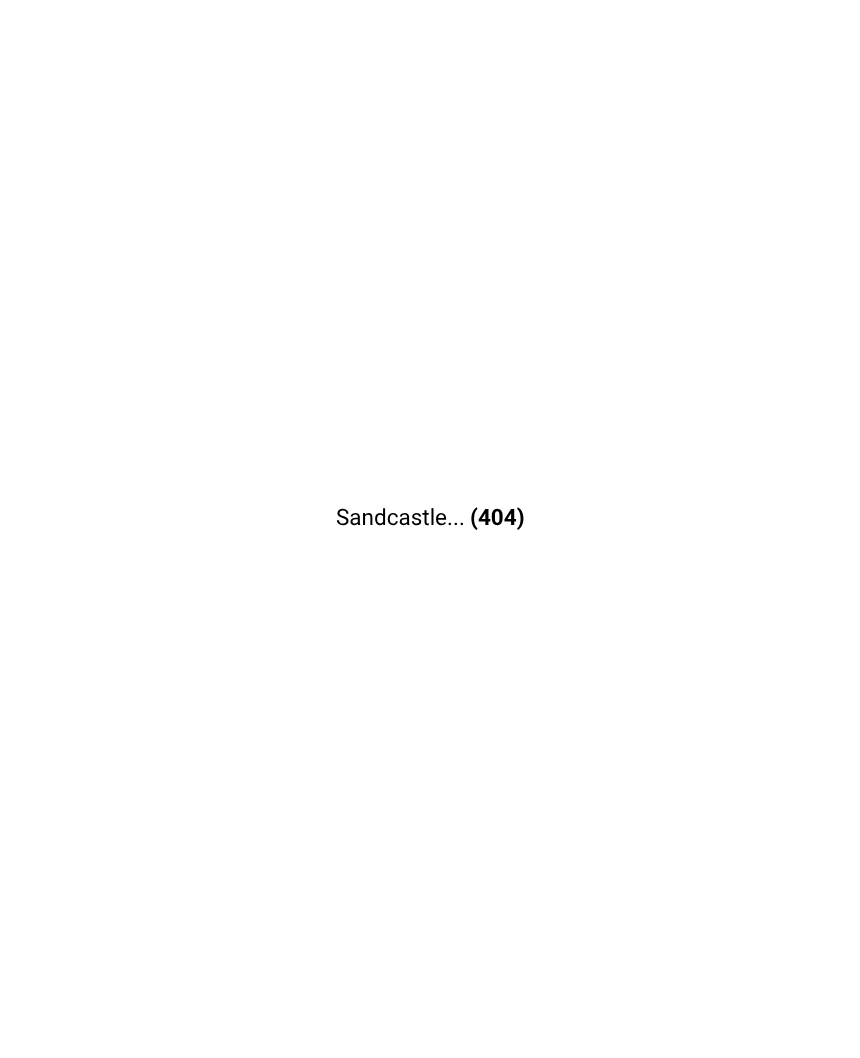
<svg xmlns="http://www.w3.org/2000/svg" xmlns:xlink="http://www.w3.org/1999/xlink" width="860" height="1058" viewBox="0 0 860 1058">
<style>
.cls-1{font:22.5px Roboto;fill:#000000}
.cls-2{font:bold 22.5px Roboto;fill:#000000}
</style>
<rect width="100%" height="100%" fill="#ffffff"/>
<text class="cls-1" x="336" y="525">Sandcastle...</text>
<text class="cls-2" x="470" y="525">(404)</text>
</svg>
